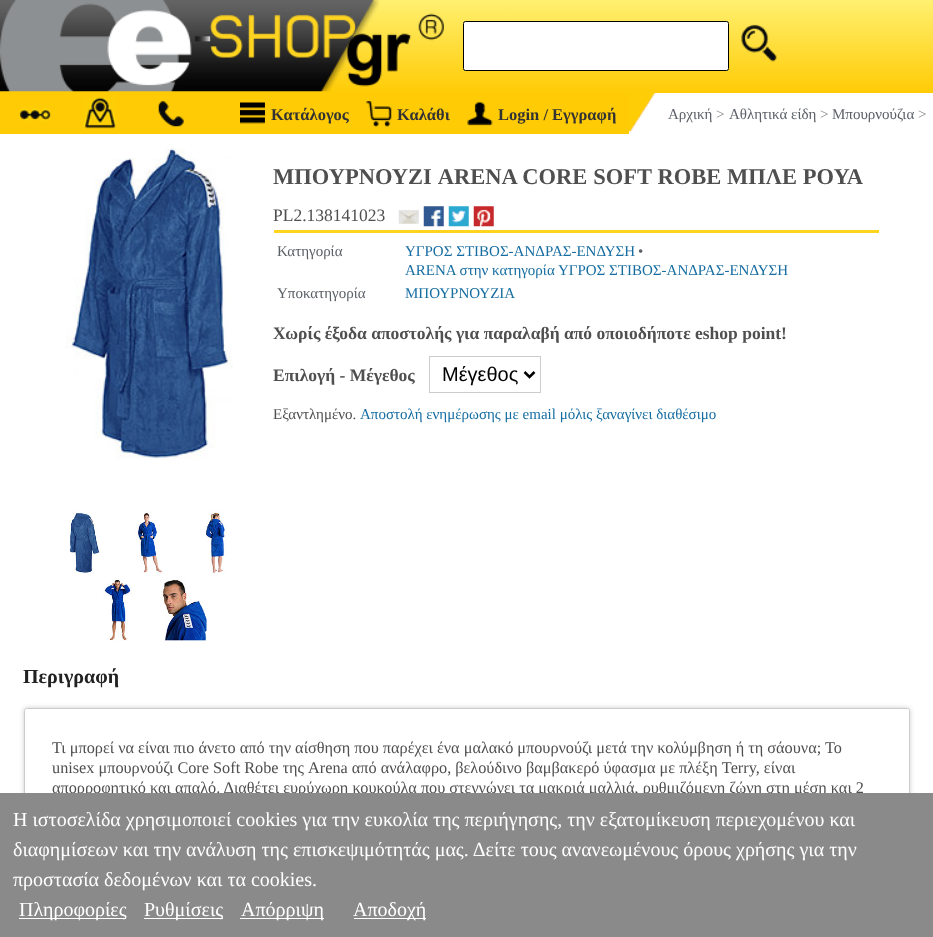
<svg xmlns="http://www.w3.org/2000/svg" xmlns:xlink="http://www.w3.org/1999/xlink" width="933" height="937" viewBox="0 0 933 937">
<style>
.cls-1{font:bold 16.5px Liberation Serif;fill:#333333}
.cls-2{font:15px Liberation Serif;fill:#5b6067}
.cls-3{font:15px Liberation Serif;fill:#8a8a8a}
.cls-4{font:bold 22.5px Liberation Serif;fill:#4f4f4f}
.cls-5{font:17.5px Liberation Serif;fill:#4f4f4f}
.cls-6{font:15px Liberation Serif;fill:#166da2}
.cls-7{font:bold 17.5px Liberation Serif;fill:#4f4f4f}
.cls-8{font:20px Liberation Sans;fill:#000000}
.cls-9{font:15px Liberation Serif;fill:#4f4f4f}
.cls-10{font:bold 20px Liberation Serif;fill:#222222}
.cls-11{font:16.25px Liberation Serif;fill:#4f4f4f}
.cls-12{font:20px Liberation Serif;fill:#ffffff}
</style>
<defs>
<linearGradient id="g1" gradientUnits="userSpaceOnUse" x1="467" y1="93" x2="467" y2="0"><stop offset="0" stop-color="#ffcb05"/><stop offset="1" stop-color="#fff070"/></linearGradient>
<clipPath id="clip1"><path d="M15 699H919V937H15ZM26.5 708H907.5C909 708 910 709 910 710.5V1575.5C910 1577 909 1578 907.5 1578H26.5C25 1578 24 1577 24 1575.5V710.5C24 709 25 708 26.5 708Z" clip-rule="evenodd"/></clipPath>
</defs>
<rect width="100%" height="100%" fill="#ffffff"/>
<rect fill="url(#g1)" x="0" y="0" width="933" height="93"/>
<image xlink:href="image0.png" x="0" y="0" width="444" height="92"/>
<rect fill="#ffffff" stroke="#000000" x="463.5" y="21.5" width="265" height="49" rx="2"/>
<image xlink:href="image1.png" x="741" y="24" width="36" height="38"/>
<rect fill="#ffcb05" x="0" y="93" width="629" height="41"/>
<image xlink:href="image2.png" x="19" y="108" width="32" height="14"/>
<image xlink:href="image3.png" x="83" y="96" width="34" height="33"/>
<image xlink:href="image4.png" x="158" y="101" width="26" height="26"/>
<image xlink:href="image5.png" x="240" y="102" width="25" height="22"/>
<image xlink:href="image6.png" x="366" y="101" width="26" height="26"/>
<image xlink:href="image7.png" x="467" y="101" width="26" height="25"/>
<image xlink:href="image8.png" x="629" y="92" width="27" height="40"/>
<image xlink:href="image9.png" x="65" y="148" width="168" height="311"/>
<image xlink:href="image10.png" x="69" y="511" width="33" height="63"/>
<image xlink:href="image11.png" x="135" y="511" width="29" height="63"/>
<image xlink:href="image12.png" x="206" y="511" width="21" height="63"/>
<image xlink:href="image13.png" x="103" y="579" width="29" height="62"/>
<image xlink:href="image14.png" x="161" y="579" width="46" height="63"/>
<image xlink:href="image15.png" x="398" y="210" width="21" height="14"/>
<image xlink:href="image16.png" x="423" y="206" width="21" height="21"/>
<image xlink:href="image17.png" x="448" y="206" width="21" height="21"/>
<image xlink:href="image18.png" x="473" y="206" width="21" height="21"/>
<rect fill="#ffd41c" x="274" y="230" width="605" height="3"/>
<rect fill="none" stroke="#cccccc" x="429.5" y="356.5" width="111" height="36"/>
<path fill="none" stroke="#000000" stroke-width="2.5" d="M524.5 372L529.5 377L534.5 372"/>
<g clip-path="url(#clip1)">
<rect fill="#000000" fill-opacity="0.2" filter="blur(2.5px)" x="24" y="708" width="886" height="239" rx="2.5"/>
</g>
<rect fill="none" stroke="#cccccc" x="24.5" y="708.5" width="885" height="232" rx="2"/>
<text class="cls-1" x="271" y="120">Κατάλογος</text>
<text class="cls-1" x="397" y="120">Καλάθι</text>
<text class="cls-1" x="498" y="120">Login / Εγγραφή</text>
<text class="cls-2" x="668" y="119">Αρχική</text>
<text class="cls-3" x="716" y="119">&gt;</text>
<text class="cls-2" x="729" y="119">Αθλητικά είδη</text>
<text class="cls-3" x="820" y="119">&gt;</text>
<text class="cls-2" x="832" y="119">Μπουρνούζια</text>
<text class="cls-3" x="918" y="119">&gt;</text>
<text class="cls-4" x="273" y="184" word-spacing="0.25">ΜΠΟΥΡΝΟΥΖΙ ARENA CORE SOFT ROBE ΜΠΛΕ ΡΟΥΑ</text>
<text class="cls-5" x="273" y="221">PL2.138141023</text>
<text class="cls-2" x="277" y="256">Κατηγορία</text>
<text class="cls-6" x="405" y="256">ΥΓΡΟΣ ΣΤΙΒΟΣ-ΑΝΔΡΑΣ-ΕΝΔΥΣΗ</text>
<text class="cls-2" x="638" y="256">•</text>
<text class="cls-6" x="405" y="275">ARENA στην κατηγορία ΥΓΡΟΣ ΣΤΙΒΟΣ-ΑΝΔΡΑΣ-ΕΝΔΥΣΗ</text>
<text class="cls-2" x="277" y="298">Υποκατηγορία</text>
<text class="cls-6" x="405" y="298">ΜΠΟΥΡΝΟΥΖΙΑ</text>
<text class="cls-7" x="273" y="339">Χωρίς έξοδα αποστολής για παραλαβή από οποιοδήποτε eshop point!</text>
<text class="cls-7" x="273" y="381">Επιλογή - Μέγεθος</text>
<text class="cls-8" x="442" y="381">Μέγεθος</text>
<text class="cls-9" x="273" y="419">Εξαντλημένο.</text>
<text class="cls-6" x="360" y="419">Αποστολή ενημέρωσης με email μόλις ξαναγίνει διαθέσιμο</text>
<text class="cls-10" x="23" y="683">Περιγραφή</text>
<text class="cls-11"><tspan x="52" y="753">Τι μπορεί να είναι πιο άνετο από την αίσθηση που παρέχει ένα μαλακό μπουρνούζι μετά την κολύμβηση ή τη σάουνα; Το</tspan><tspan x="52" y="773">unisex μπουρνούζι Core Soft Robe της Arena από ανάλαφρο, βελούδινο βαμβακερό ύφασμα με πλέξη Terry, είναι</tspan><tspan x="52" y="793">απορροφητικό και απαλό. Διαθέτει ευρύχωρη κουκούλα που στεγνώνει τα μακριά μαλλιά, ρυθμιζόμενη ζώνη στη μέση και 2</tspan></text>
<rect fill="#8a8a8a" x="0" y="793" width="933" height="144"/>
<text class="cls-12"><tspan x="13" y="826">Η ιστοσελίδα χρησιμοποιεί cookies για την ευκολία της περιήγησης, την εξατομίκευση περιεχομένου και</tspan><tspan x="13" y="856">διαφημίσεων και την ανάλυση της επισκεψιμότητάς μας. Δείτε τους ανανεωμένους όρους χρήσης για την</tspan><tspan x="13" y="886">προστασία δεδομένων και τα cookies.</tspan></text>
<rect fill="#ffffff" x="19" y="918" width="107" height="1"/>
<text class="cls-12" x="19" y="916">Πληροφορίες</text>
<rect fill="#ffffff" x="144" y="918" width="79" height="1"/>
<text class="cls-12" x="144" y="916">Ρυθμίσεις</text>
<rect fill="#ffffff" x="240" y="918" width="84" height="1"/>
<text class="cls-12" x="241" y="916">Απόρριψη</text>
<rect fill="#ffffff" x="354" y="918" width="72" height="1"/>
<text class="cls-12" x="353" y="916">Αποδοχή</text>
</svg>
